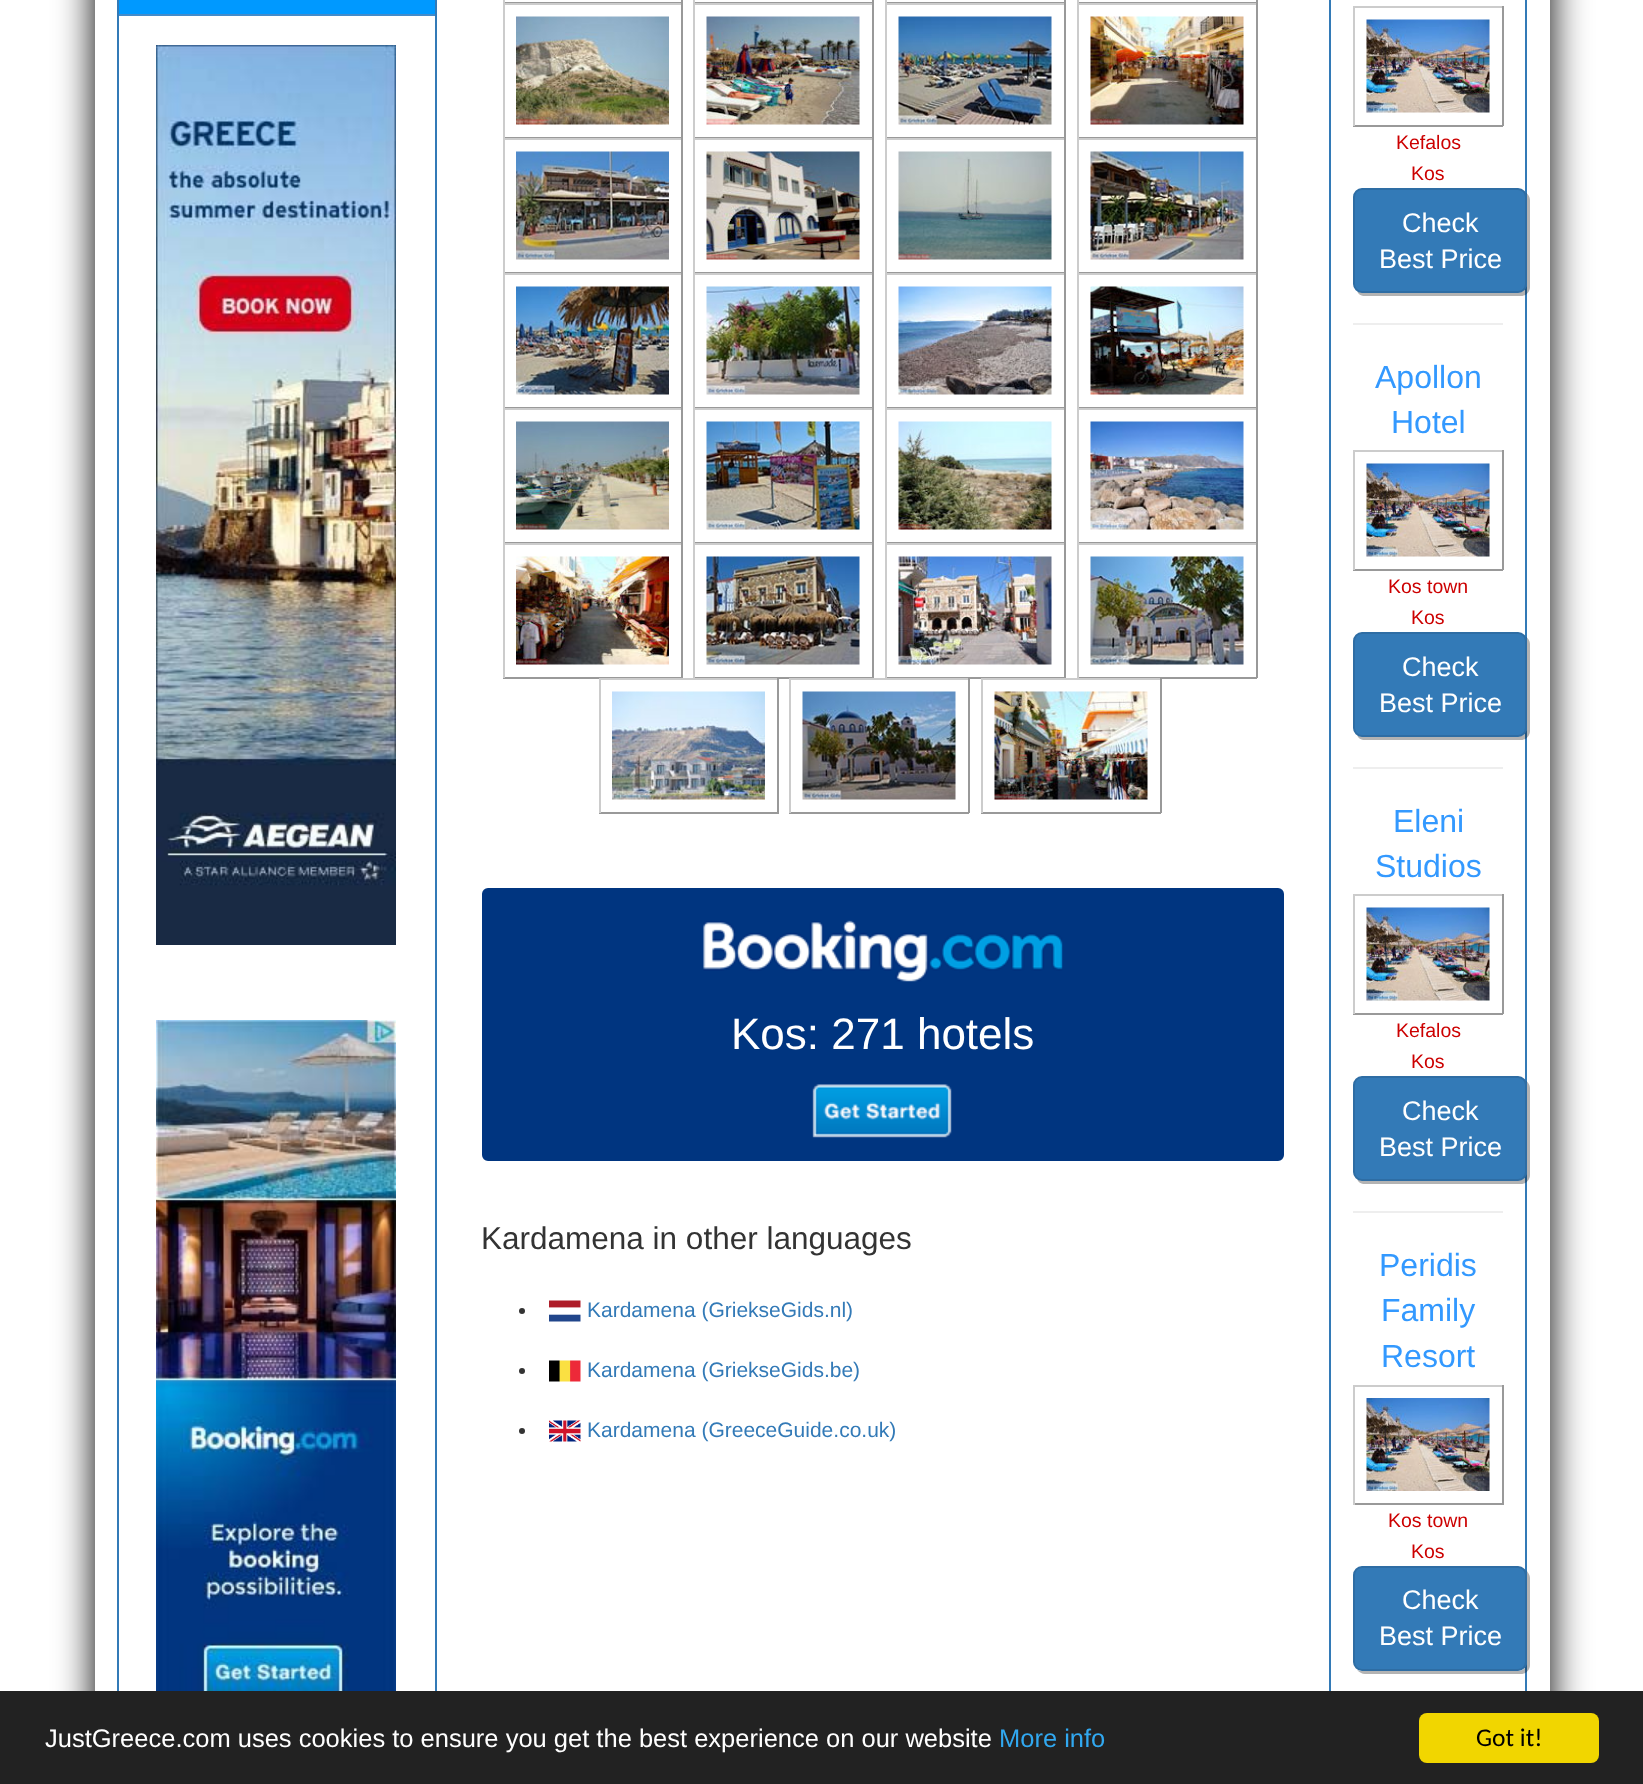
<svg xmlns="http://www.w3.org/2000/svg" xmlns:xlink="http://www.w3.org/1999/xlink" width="1643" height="1784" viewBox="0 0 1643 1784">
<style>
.cls-1{font:44px Liberation Sans;fill:#ffffff}
.cls-2{font:31.5px Liberation Sans;fill:#333333}
.cls-3{font:21px Liberation Sans;fill:#337ab7}
.cls-4{font:19.5px Liberation Sans;fill:#cc0000}
.cls-5{font:27px Liberation Sans;fill:#ffffff}
.cls-6{font:32px Liberation Sans;fill:#3399ff}
.cls-7{font:25.5px Liberation Sans;fill:#ffffff}
.cls-8{font:25.5px Liberation Sans;fill:#31a8f0}
.cls-9{font:25.5px Carlito;fill:#000000}
</style>
<defs>
<clipPath id="clip1"><path d="M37 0H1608V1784H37ZM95-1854H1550V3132H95Z" clip-rule="evenodd"/></clipPath>
</defs>
<rect width="100%" height="100%" fill="#ffffff"/>
<g clip-path="url(#clip1)">
<rect fill="#000000" filter="blur(19px)" x="95" y="-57" width="1455" height="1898"/>
</g>
<rect fill="none" stroke="#337ab7" stroke-width="2" x="118" y="-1" width="318" height="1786"/>
<rect fill="#0099ff" x="119" y="0" width="316" height="14"/>
<rect fill="#428bca" x="119" y="14" width="316" height="2"/>
<image xlink:href="image0.png" x="156" y="45" width="240" height="900"/>
<image xlink:href="image1.png" x="156" y="1020" width="240" height="671"/>
<rect fill="#999999" x="681" y="0" width="2" height="3"/>
<rect fill="#999999" x="503" y="2" width="180" height="1"/>
<rect fill="#cccccc" x="503" y="0" width="2" height="3"/>
<rect fill="#999999" x="872" y="0" width="2" height="3"/>
<rect fill="#999999" x="693" y="2" width="180" height="1"/>
<rect fill="#cccccc" x="693" y="0" width="2" height="3"/>
<rect fill="#999999" x="1064" y="0" width="2" height="3"/>
<rect fill="#999999" x="885" y="2" width="180" height="1"/>
<rect fill="#cccccc" x="885" y="0" width="2" height="3"/>
<rect fill="#999999" x="1256" y="0" width="2" height="3"/>
<rect fill="#999999" x="1077" y="2" width="180" height="1"/>
<rect fill="#cccccc" x="1077" y="0" width="2" height="3"/>
<rect fill="#cccccc" x="503" y="3" width="180" height="2"/>
<rect fill="#999999" x="681" y="3" width="2" height="135"/>
<rect fill="#999999" x="503" y="137" width="180" height="1"/>
<rect fill="#cccccc" x="503" y="3" width="2" height="135"/>
<rect fill="#cccccc" x="693" y="3" width="180" height="2"/>
<rect fill="#999999" x="872" y="3" width="2" height="135"/>
<rect fill="#999999" x="693" y="137" width="180" height="1"/>
<rect fill="#cccccc" x="693" y="3" width="2" height="135"/>
<rect fill="#cccccc" x="885" y="3" width="180" height="2"/>
<rect fill="#999999" x="1064" y="3" width="2" height="135"/>
<rect fill="#999999" x="885" y="137" width="180" height="1"/>
<rect fill="#cccccc" x="885" y="3" width="2" height="135"/>
<rect fill="#cccccc" x="1077" y="3" width="180" height="2"/>
<image xlink:href="image2.png" x="516" y="16" width="153" height="109"/>
<image xlink:href="image3.png" x="706" y="16" width="154" height="109"/>
<image xlink:href="image4.png" x="898" y="16" width="154" height="109"/>
<rect fill="#999999" x="1256" y="3" width="2" height="135"/>
<rect fill="#999999" x="1077" y="137" width="180" height="1"/>
<rect fill="#cccccc" x="1077" y="3" width="2" height="135"/>
<image xlink:href="image5.png" x="1090" y="16" width="154" height="109"/>
<rect fill="#cccccc" x="503" y="138" width="180" height="2"/>
<rect fill="#999999" x="681" y="138" width="2" height="135"/>
<rect fill="#999999" x="503" y="272" width="180" height="1"/>
<rect fill="#cccccc" x="503" y="138" width="2" height="135"/>
<rect fill="#cccccc" x="693" y="138" width="180" height="2"/>
<rect fill="#999999" x="872" y="138" width="2" height="135"/>
<rect fill="#999999" x="693" y="272" width="180" height="1"/>
<rect fill="#cccccc" x="693" y="138" width="2" height="135"/>
<rect fill="#cccccc" x="885" y="138" width="180" height="2"/>
<rect fill="#999999" x="1064" y="138" width="2" height="135"/>
<rect fill="#999999" x="885" y="272" width="180" height="1"/>
<rect fill="#cccccc" x="885" y="138" width="2" height="135"/>
<rect fill="#cccccc" x="1077" y="138" width="180" height="2"/>
<image xlink:href="image6.png" x="516" y="151" width="153" height="109"/>
<image xlink:href="image7.png" x="706" y="151" width="154" height="109"/>
<image xlink:href="image8.png" x="898" y="151" width="154" height="109"/>
<rect fill="#999999" x="1256" y="138" width="2" height="135"/>
<rect fill="#999999" x="1077" y="272" width="180" height="1"/>
<rect fill="#cccccc" x="1077" y="138" width="2" height="135"/>
<image xlink:href="image9.png" x="1090" y="151" width="154" height="109"/>
<rect fill="#cccccc" x="503" y="273" width="180" height="2"/>
<rect fill="#999999" x="681" y="273" width="2" height="135"/>
<rect fill="#999999" x="503" y="407" width="180" height="1"/>
<rect fill="#cccccc" x="503" y="273" width="2" height="135"/>
<rect fill="#cccccc" x="693" y="273" width="180" height="2"/>
<rect fill="#999999" x="872" y="273" width="2" height="135"/>
<rect fill="#999999" x="693" y="407" width="180" height="1"/>
<rect fill="#cccccc" x="693" y="273" width="2" height="135"/>
<rect fill="#cccccc" x="885" y="273" width="180" height="2"/>
<rect fill="#999999" x="1064" y="273" width="2" height="135"/>
<rect fill="#999999" x="885" y="407" width="180" height="1"/>
<rect fill="#cccccc" x="885" y="273" width="2" height="135"/>
<rect fill="#cccccc" x="1077" y="273" width="180" height="2"/>
<image xlink:href="image10.png" x="516" y="286" width="153" height="109"/>
<image xlink:href="image11.png" x="706" y="286" width="154" height="109"/>
<image xlink:href="image12.png" x="898" y="286" width="154" height="109"/>
<rect fill="#999999" x="1256" y="273" width="2" height="135"/>
<rect fill="#999999" x="1077" y="407" width="180" height="1"/>
<rect fill="#cccccc" x="1077" y="273" width="2" height="135"/>
<image xlink:href="image13.png" x="1090" y="286" width="154" height="109"/>
<rect fill="#cccccc" x="503" y="408" width="180" height="2"/>
<rect fill="#999999" x="681" y="408" width="2" height="135"/>
<rect fill="#999999" x="503" y="542" width="180" height="1"/>
<rect fill="#cccccc" x="503" y="408" width="2" height="135"/>
<rect fill="#cccccc" x="693" y="408" width="180" height="2"/>
<rect fill="#999999" x="872" y="408" width="2" height="135"/>
<rect fill="#999999" x="693" y="542" width="180" height="1"/>
<rect fill="#cccccc" x="693" y="408" width="2" height="135"/>
<rect fill="#cccccc" x="885" y="408" width="180" height="2"/>
<rect fill="#999999" x="1064" y="408" width="2" height="135"/>
<rect fill="#999999" x="885" y="542" width="180" height="1"/>
<rect fill="#cccccc" x="885" y="408" width="2" height="135"/>
<rect fill="#cccccc" x="1077" y="408" width="180" height="2"/>
<image xlink:href="image14.png" x="516" y="421" width="153" height="109"/>
<image xlink:href="image15.png" x="706" y="421" width="154" height="109"/>
<image xlink:href="image16.png" x="898" y="421" width="154" height="109"/>
<rect fill="#999999" x="1256" y="408" width="2" height="135"/>
<rect fill="#999999" x="1077" y="542" width="180" height="1"/>
<rect fill="#cccccc" x="1077" y="408" width="2" height="135"/>
<image xlink:href="image17.png" x="1090" y="421" width="154" height="109"/>
<rect fill="#cccccc" x="503" y="543" width="180" height="2"/>
<rect fill="#999999" x="681" y="543" width="2" height="135"/>
<rect fill="#999999" x="503" y="677" width="180" height="2"/>
<rect fill="#cccccc" x="503" y="543" width="2" height="135"/>
<rect fill="#cccccc" x="693" y="543" width="180" height="2"/>
<rect fill="#999999" x="872" y="543" width="2" height="135"/>
<rect fill="#999999" x="693" y="677" width="180" height="2"/>
<rect fill="#cccccc" x="693" y="543" width="2" height="135"/>
<rect fill="#cccccc" x="885" y="543" width="180" height="2"/>
<rect fill="#999999" x="1064" y="543" width="2" height="135"/>
<rect fill="#999999" x="885" y="677" width="180" height="2"/>
<rect fill="#cccccc" x="885" y="543" width="2" height="135"/>
<rect fill="#cccccc" x="1077" y="543" width="180" height="2"/>
<image xlink:href="image18.png" x="516" y="556" width="153" height="109"/>
<image xlink:href="image19.png" x="706" y="556" width="154" height="109"/>
<image xlink:href="image20.png" x="898" y="556" width="154" height="109"/>
<rect fill="#999999" x="1256" y="543" width="2" height="135"/>
<rect fill="#999999" x="1077" y="677" width="180" height="2"/>
<rect fill="#cccccc" x="1077" y="543" width="2" height="135"/>
<image xlink:href="image21.png" x="1090" y="556" width="154" height="109"/>
<rect fill="#cccccc" x="599" y="678" width="180" height="2"/>
<rect fill="#999999" x="777" y="678" width="2" height="135"/>
<rect fill="#999999" x="599" y="812" width="180" height="2"/>
<rect fill="#cccccc" x="599" y="678" width="2" height="135"/>
<rect fill="#cccccc" x="789" y="678" width="180" height="2"/>
<rect fill="#999999" x="968" y="678" width="2" height="135"/>
<rect fill="#999999" x="789" y="812" width="180" height="2"/>
<rect fill="#cccccc" x="789" y="678" width="2" height="135"/>
<rect fill="#cccccc" x="981" y="678" width="180" height="2"/>
<image xlink:href="image22.png" x="612" y="691" width="153" height="109"/>
<image xlink:href="image23.png" x="802" y="691" width="154" height="109"/>
<rect fill="#999999" x="1160" y="678" width="2" height="135"/>
<rect fill="#999999" x="981" y="812" width="180" height="2"/>
<rect fill="#cccccc" x="981" y="678" width="2" height="135"/>
<image xlink:href="image24.png" x="994" y="691" width="154" height="109"/>
<rect fill="#003580" stroke="#003580" stroke-width="2" x="483" y="889" width="800" height="271" rx="5"/>
<image xlink:href="image25.png" x="703" y="920" width="360" height="62"/>
<image xlink:href="image26.png" x="812" y="1084" width="140" height="54"/>
<circle fill="#333333" cx="522" cy="1311" r="3"/>
<image xlink:href="image27.png" x="549" y="1300" width="32" height="22"/>
<circle fill="#333333" cx="522" cy="1371" r="3"/>
<image xlink:href="image28.png" x="549" y="1360" width="32" height="22"/>
<circle fill="#333333" cx="522" cy="1431" r="3"/>
<image xlink:href="image29.png" x="549" y="1420" width="32" height="22"/>
<rect fill="none" stroke="#337ab7" stroke-width="2" x="1330" y="-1" width="196" height="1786"/>
<rect fill="#cccccc" x="1353" y="6" width="150" height="2"/>
<rect fill="#999999" x="1502" y="6" width="2" height="120"/>
<rect fill="#999999" x="1353" y="125" width="150" height="2"/>
<rect fill="#cccccc" x="1353" y="6" width="2" height="120"/>
<image xlink:href="image30.png" x="1366" y="19" width="124" height="94"/>
<path fill="#030303" fill-opacity="0.3" d="M1357 291C1358 294 1361 296 1365 296H1521C1526 296 1530 292 1530 287V200C1530 197 1528 194 1526 193L1527 196V284C1527 288 1523 292 1518 292H1362C1360 292 1358 292 1357 291Z"/>
<rect fill="#337ab7" stroke="#2e6da4" stroke-width="2" x="1354" y="189" width="172" height="103" rx="8"/>
<rect fill="#eeeeee" x="1353" y="323" width="150" height="2"/>
<rect fill="#cccccc" x="1353" y="450" width="150" height="2"/>
<rect fill="#999999" x="1502" y="450" width="2" height="120"/>
<rect fill="#999999" x="1353" y="569" width="150" height="2"/>
<rect fill="#cccccc" x="1353" y="450" width="2" height="120"/>
<image xlink:href="image30.png" x="1366" y="463" width="124" height="94"/>
<path fill="#030303" fill-opacity="0.3" d="M1357 735C1358 738 1361 740 1365 740H1521C1526 740 1530 736 1530 731V644C1530 641 1528 638 1526 637L1527 640V728C1527 732 1523 736 1518 736H1362C1360 736 1358 736 1357 735Z"/>
<rect fill="#337ab7" stroke="#2e6da4" stroke-width="2" x="1354" y="633" width="172" height="103" rx="8"/>
<rect fill="#eeeeee" x="1353" y="767" width="150" height="2"/>
<rect fill="#cccccc" x="1353" y="894" width="150" height="2"/>
<rect fill="#999999" x="1502" y="894" width="2" height="120"/>
<rect fill="#999999" x="1353" y="1013" width="150" height="2"/>
<rect fill="#cccccc" x="1353" y="894" width="2" height="120"/>
<image xlink:href="image30.png" x="1366" y="907" width="124" height="94"/>
<path fill="#030303" fill-opacity="0.3" d="M1357 1179C1358 1182 1361 1184 1365 1184H1521C1526 1184 1530 1180 1530 1175V1088C1530 1085 1528 1082 1526 1081L1527 1084V1172C1527 1176 1523 1180 1518 1180H1362C1360 1180 1358 1180 1357 1179Z"/>
<rect fill="#337ab7" stroke="#2e6da4" stroke-width="2" x="1354" y="1077" width="172" height="103" rx="8"/>
<rect fill="#eeeeee" x="1353" y="1211" width="150" height="2"/>
<rect fill="#cccccc" x="1353" y="1385" width="150" height="2"/>
<rect fill="#999999" x="1502" y="1385" width="2" height="120"/>
<rect fill="#999999" x="1353" y="1503" width="150" height="2"/>
<rect fill="#cccccc" x="1353" y="1385" width="2" height="120"/>
<image xlink:href="image31.png" x="1366" y="1398" width="124" height="93"/>
<path fill="#030303" fill-opacity="0.3" d="M1357 1670C1359 1672 1362 1674 1365 1674H1521C1526 1674 1530 1670 1530 1665V1578C1530 1575 1528 1572 1526 1570C1527 1572 1527 1573 1527 1575V1662C1527 1667 1523 1671 1518 1671H1362C1360 1671 1359 1671 1357 1670Z"/>
<rect fill="#337ab7" stroke="#2e6da4" stroke-width="2" x="1354" y="1567" width="172" height="103" rx="8"/>
<rect fill="#222222" x="0" y="1691" width="1643" height="93"/>
<rect fill="#f1d600" x="1419" y="1713" width="180" height="50" rx="8"/>
<text class="cls-1" x="731" y="1049">Kos: 271 hotels</text>
<text class="cls-2" x="481" y="1249">Kardamena in other languages</text>
<text class="cls-3" x="587" y="1317">Kardamena (GriekseGids.nl)</text>
<text class="cls-3" x="587" y="1377">Kardamena (GriekseGids.be)</text>
<text class="cls-3" x="587" y="1437">Kardamena (GreeceGuide.co.uk)</text>
<text class="cls-4" x="1396" y="149">Kefalos</text>
<text class="cls-4" x="1411" y="180">Kos</text>
<text class="cls-5" x="1402" y="232">Check</text>
<text class="cls-5" x="1379" y="268">Best Price</text>
<text class="cls-6" x="1375" y="388">Apollon</text>
<text class="cls-6" x="1391" y="433">Hotel</text>
<text class="cls-4" x="1388" y="593">Kos town</text>
<text class="cls-4" x="1411" y="624">Kos</text>
<text class="cls-5" x="1402" y="676">Check</text>
<text class="cls-5" x="1379" y="712">Best Price</text>
<text class="cls-6" x="1393" y="832">Eleni</text>
<text class="cls-6" x="1375" y="877">Studios</text>
<text class="cls-4" x="1396" y="1037">Kefalos</text>
<text class="cls-4" x="1411" y="1068">Kos</text>
<text class="cls-5" x="1402" y="1120">Check</text>
<text class="cls-5" x="1379" y="1156">Best Price</text>
<text class="cls-6" x="1379" y="1276">Peridis</text>
<text class="cls-6"><tspan x="1381" y="1321">Family</tspan><tspan x="1381" y="1367">Resort</tspan></text>
<text class="cls-4" x="1388" y="1527">Kos town</text>
<text class="cls-4" x="1411" y="1558">Kos</text>
<text class="cls-5" x="1402" y="1609">Check</text>
<text class="cls-5" x="1379" y="1645">Best Price</text>
<text class="cls-7" x="45" y="1747">JustGreece.com uses cookies to ensure you get the best experience on our website</text>
<text class="cls-8" x="999" y="1747">More info</text>
<text class="cls-9" x="1476" y="1746">Got it!</text>
</svg>
